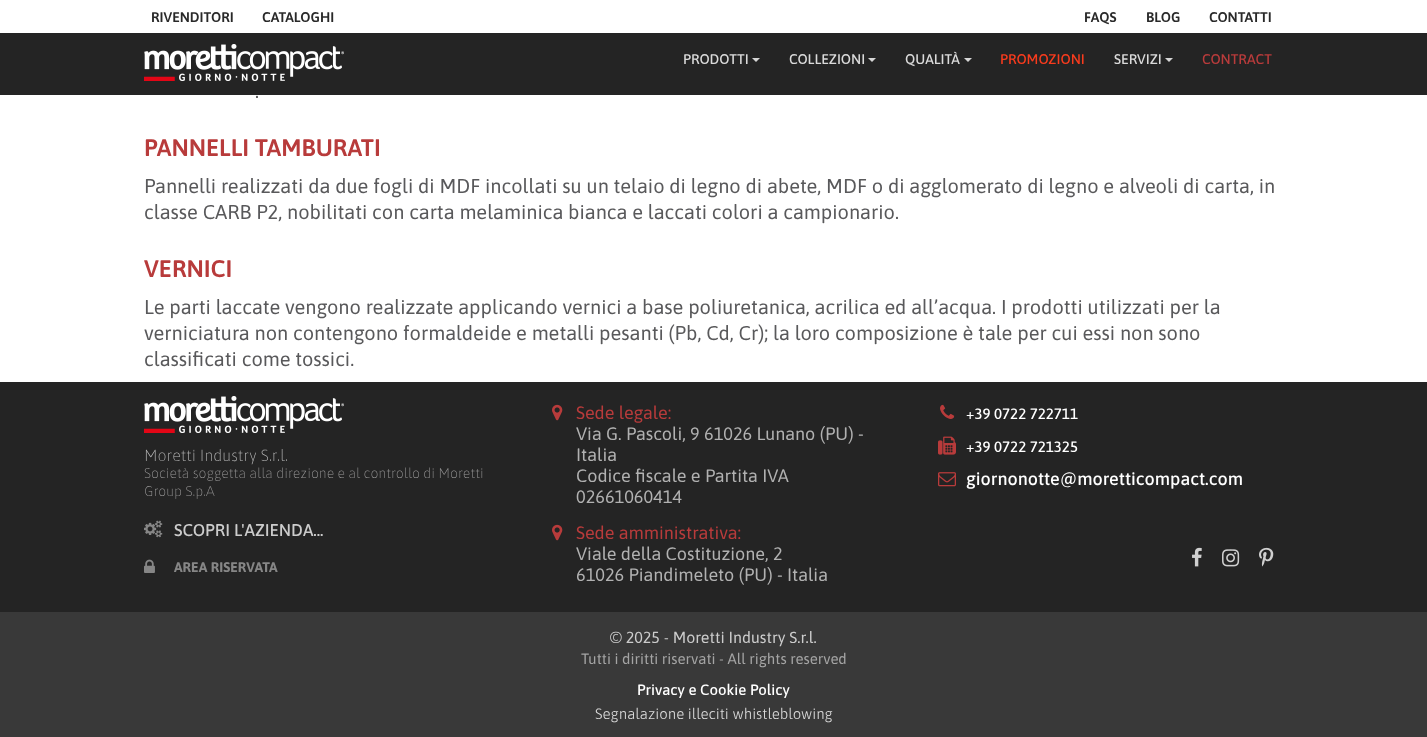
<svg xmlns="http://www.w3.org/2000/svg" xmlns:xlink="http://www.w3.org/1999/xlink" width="1427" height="737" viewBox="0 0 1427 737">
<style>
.cls-1{font:600 14px Asap;fill:#292929}
.cls-2{font:500 14px Asap;fill:#dadada}
.cls-3{font:500 14px Asap;fill:#f93b1d}
.cls-4{font:500 14px Asap;fill:#b83b3b}
.cls-5{font:20px Asap;fill:#59595b}
.cls-6{font:600 24px Asap;fill:#b83b3b}
.cls-7{font:100 16px Asap;fill:#bebebe}
.cls-8{font:100 14px Asap;fill:#9c9b9b}
.cls-9{font:500 17px Asap;fill:#cccccc}
.cls-10{font:bold 14px Asap;fill:#868686}
.cls-11{font:18px Asap;fill:#b83b3b}
.cls-12{font:18px Asap;fill:#b1b1b1}
.cls-13{font:500 15px Asap;fill:#ffffff}
.cls-14{font:500 18px Asap;fill:#ffffff}
.cls-15{font:16px Asap;fill:#cccccc}
.cls-16{font:15px Asap;fill:#a4a4a4}
.cls-17{font:300 15px Asap;fill:#dadada}
</style>
<rect width="100%" height="100%" fill="#ffffff"/>
<rect fill="#242424" x="0" y="33" width="1427" height="62"/>
<image xlink:href="image0.png" x="144" y="44" width="200" height="37"/>
<path fill="#d6d6d6" d="M752 58H760L756 62Z"/>
<path fill="#d6d6d6" d="M868 58H876L872 62Z"/>
<path fill="#d6d6d6" d="M964 58H972L968 62Z"/>
<path fill="#d6d6d6" d="M1165 58H1173L1169 62Z"/>
<rect fill="#242424" x="0" y="382" width="1427" height="230"/>
<image xlink:href="image0.png" x="144" y="396" width="200" height="37"/>
<image xlink:href="image1.png" x="144" y="520" width="19" height="18"/>
<image xlink:href="image2.png" x="144" y="559" width="11" height="14"/>
<image xlink:href="image3.png" x="552" y="404" width="11" height="17"/>
<image xlink:href="image3.png" x="552" y="524" width="11" height="17"/>
<image xlink:href="image4.png" x="940" y="404" width="15" height="15"/>
<image xlink:href="image5.png" x="938" y="436" width="18" height="19"/>
<image xlink:href="image6.png" x="938" y="472" width="18" height="15"/>
<image xlink:href="image7.png" x="1192" y="547" width="10" height="20"/>
<image xlink:href="image8.png" x="1222" y="549" width="18" height="18"/>
<image xlink:href="image9.png" x="1259" y="547" width="15" height="20"/>
<rect fill="#393939" x="0" y="612" width="1427" height="125"/>
<text class="cls-1" x="151" y="22">RIVENDITORI</text>
<text class="cls-1" x="262" y="22">CATALOGHI</text>
<text class="cls-1" x="1084" y="22">FAQS</text>
<text class="cls-1" x="1146" y="22">BLOG</text>
<text class="cls-1" x="1209" y="22">CONTATTI</text>
<text class="cls-2" x="683" y="64">PRODOTTI</text>
<text class="cls-2" x="789" y="64">COLLEZIONI</text>
<text class="cls-2" x="905" y="64">QUALITÀ</text>
<text class="cls-3" x="1000" y="64">PROMOZIONI</text>
<text class="cls-2" x="1114" y="64">SERVIZI</text>
<text class="cls-4" x="1202" y="64">CONTRACT</text>
<text class="cls-5" x="255" y="98">.</text>
<text class="cls-6" x="144" y="156">PANNELLI TAMBURATI</text>
<text class="cls-5"><tspan x="144" y="193">Pannelli realizzati da due fogli di MDF incollati su un telaio di legno di abete, MDF o di agglomerato di legno e alveoli di carta, in</tspan><tspan x="144" y="219">classe CARB P2, nobilitati con carta melaminica bianca e laccati colori a campionario.</tspan></text>
<text class="cls-6" x="144" y="277">VERNICI</text>
<text class="cls-5"><tspan x="144" y="314">Le parti laccate vengono realizzate applicando vernici a base poliuretanica, acrilica ed all’acqua. I prodotti utilizzati per la</tspan><tspan x="144" y="340">verniciatura non contengono formaldeide e metalli pesanti (Pb, Cd, Cr); la loro composizione è tale per cui essi non sono</tspan><tspan x="144" y="366">classificati come tossici.</tspan></text>
<text class="cls-7" x="144" y="461">Moretti Industry S.r.l.</text>
<text class="cls-8"><tspan x="144" y="478">Società soggetta alla direzione e al controllo di Moretti</tspan><tspan x="144" y="496">Group S.p.A</tspan></text>
<text class="cls-9" x="174" y="536">SCOPRI L'AZIENDA...</text>
<text class="cls-10" x="174" y="572">AREA RISERVATA</text>
<text class="cls-11" x="576" y="419">Sede legale:</text>
<text class="cls-12"><tspan x="576" y="440">Via G. Pascoli, 9 61026 Lunano (PU) -</tspan><tspan x="576" y="461">Italia</tspan><tspan x="576" y="482">Codice fiscale e Partita IVA</tspan><tspan x="576" y="503">02661060414</tspan></text>
<text class="cls-11" x="576" y="539">Sede amministrativa:</text>
<text class="cls-12"><tspan x="576" y="560">Viale della Costituzione, 2</tspan><tspan x="576" y="581">61026 Piandimeleto (PU) - Italia</tspan></text>
<text class="cls-13" x="966" y="419">+39 0722 722711</text>
<text class="cls-13" x="966" y="452">+39 0722 721325</text>
<text class="cls-14" x="966" y="485">giornonotte@moretticompact.com</text>
<text class="cls-15" x="610" y="643">© 2025 - Moretti Industry S.r.l.</text>
<text class="cls-16" x="581" y="664">Tutti i diritti riservati - All rights reserved</text>
<text class="cls-13" x="637" y="695">Privacy e Cookie Policy</text>
<text class="cls-17" x="595" y="719">Segnalazione illeciti whistleblowing</text>
</svg>
